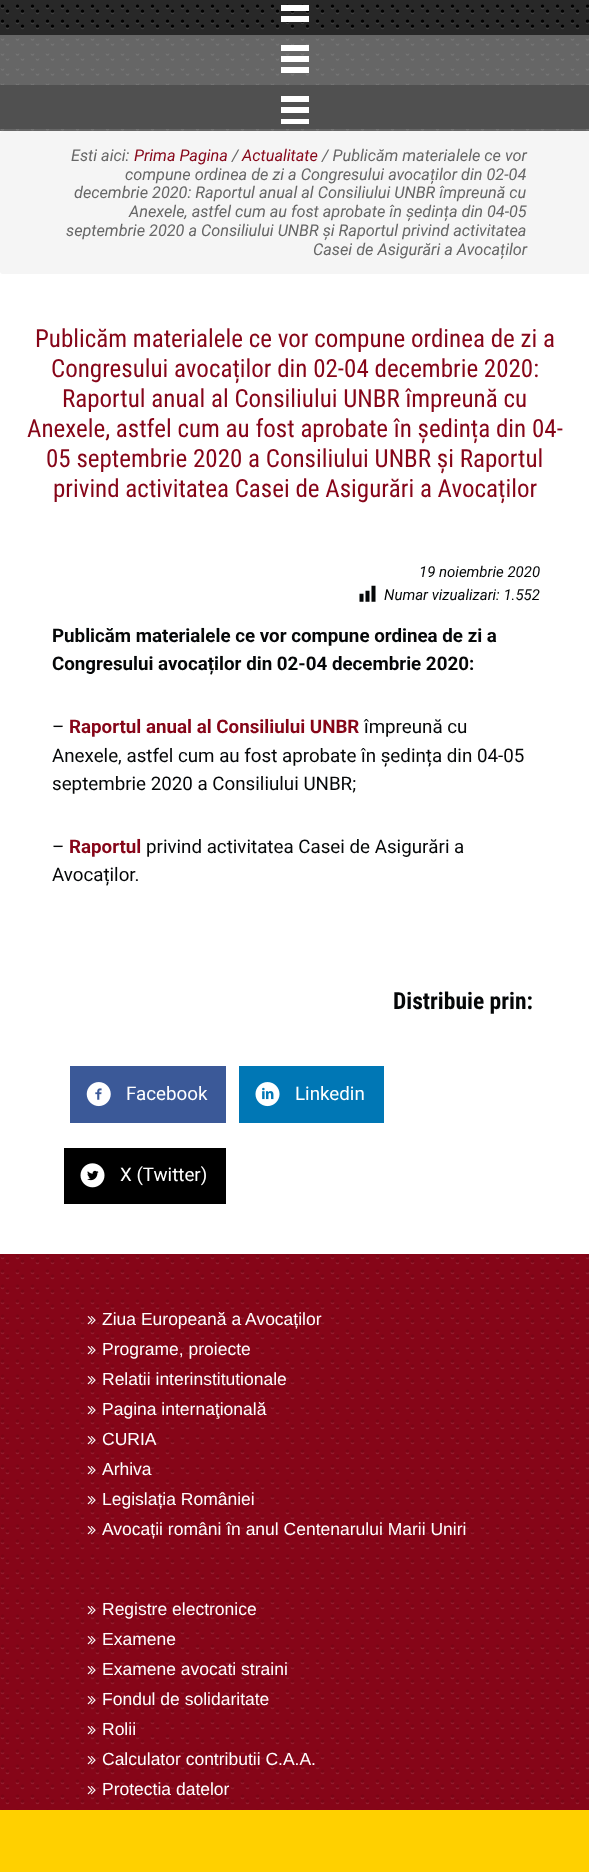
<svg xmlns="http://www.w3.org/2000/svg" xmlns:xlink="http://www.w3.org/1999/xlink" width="589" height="1872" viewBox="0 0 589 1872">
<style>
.cls-1{font:italic 16.25px Roboto;fill:#666666}
.cls-2{font:italic 16.25px Roboto;fill:#860518}
.cls-3{font:25px Roboto Condensed;fill:#860518}
.cls-4{font:italic 15px Roboto;fill:#050708}
.cls-5{font:bold 18.75px Roboto;fill:#050708}
.cls-6{font:18.75px Roboto;fill:#050708}
.cls-7{font:bold 18.75px Roboto;fill:#860518}
.cls-8{font:bold 23.5px Roboto Condensed;fill:#050708}
.cls-9{font:18.75px Roboto;fill:#ffffff}
.cls-10{font:17.5px Liberation Sans;fill:#ffffff}
</style>
<rect width="100%" height="100%" fill="#ffffff"/>
<rect fill="#282828" x="0" y="0" width="589" height="35"/>
<path fill="none" stroke="#3e3e3e" stroke-width="3.7" stroke-linecap="round" stroke-dasharray="0 15" d="M2.5 7.5H587.8"/>
<path fill="none" stroke="#3e3e3e" stroke-width="3.7" stroke-linecap="round" stroke-dasharray="0 15" d="M2.5 22.5H587.8"/>
<path fill="none" stroke="#3e3e3e" stroke-width="3.7" stroke-linecap="round" stroke-dasharray="0 15" d="M7.5 12.5H577.8"/>
<path fill="none" stroke="#3e3e3e" stroke-width="3.7" stroke-linecap="round" stroke-dasharray="0 15" d="M7.5 27.5H577.8"/>
<path fill="none" stroke="#000000" stroke-width="3.3" stroke-linecap="round" stroke-dasharray="0 15" d="M2.5 6.2H587.8"/>
<path fill="none" stroke="#000000" stroke-width="3.3" stroke-linecap="round" stroke-dasharray="0 15" d="M2.5 21.2H587.8"/>
<path fill="none" stroke="#000000" stroke-width="3.3" stroke-linecap="round" stroke-dasharray="0 15" d="M7.5 11.2H577.8"/>
<path fill="none" stroke="#000000" stroke-width="3.3" stroke-linecap="round" stroke-dasharray="0 15" d="M7.5 26.2H577.8"/>
<rect fill="#ffffff" x="281" y="5" width="28" height="6"/>
<rect fill="#ffffff" x="281" y="16" width="28" height="6"/>
<rect fill="#666666" x="0" y="35" width="589" height="96"/>
<path fill="none" stroke="#757575" stroke-width="3.7" stroke-linecap="round" stroke-dasharray="0 15" d="M2.5 38.8H587.8"/>
<path fill="none" stroke="#757575" stroke-width="3.7" stroke-linecap="round" stroke-dasharray="0 15" d="M2.5 53.8H587.8"/>
<path fill="none" stroke="#757575" stroke-width="3.7" stroke-linecap="round" stroke-dasharray="0 15" d="M2.5 68.8H587.8"/>
<path fill="none" stroke="#757575" stroke-width="3.7" stroke-linecap="round" stroke-dasharray="0 15" d="M7.5 43.8H577.8"/>
<path fill="none" stroke="#757575" stroke-width="3.7" stroke-linecap="round" stroke-dasharray="0 15" d="M7.5 58.8H577.8"/>
<path fill="none" stroke="#757575" stroke-width="3.7" stroke-linecap="round" stroke-dasharray="0 15" d="M7.5 73.8H577.8"/>
<path fill="none" stroke="#666666" stroke-width="3.3" stroke-linecap="round" stroke-dasharray="0 15" d="M2.5 37.5H587.8"/>
<path fill="none" stroke="#666666" stroke-width="3.3" stroke-linecap="round" stroke-dasharray="0 15" d="M2.5 52.5H587.8"/>
<path fill="none" stroke="#666666" stroke-width="3.3" stroke-linecap="round" stroke-dasharray="0 15" d="M2.5 67.5H587.8"/>
<path fill="none" stroke="#666666" stroke-width="3.3" stroke-linecap="round" stroke-dasharray="0 15" d="M7.5 42.5H577.8"/>
<path fill="none" stroke="#666666" stroke-width="3.3" stroke-linecap="round" stroke-dasharray="0 15" d="M7.5 57.5H577.8"/>
<path fill="none" stroke="#666666" stroke-width="3.3" stroke-linecap="round" stroke-dasharray="0 15" d="M7.5 72.5H577.8"/>
<rect fill="#ffffff" x="281" y="45" width="28" height="6"/>
<rect fill="#ffffff" x="281" y="56" width="28" height="6"/>
<rect fill="#ffffff" x="281" y="67" width="28" height="6"/>
<path fill="none" stroke="#757575" stroke-width="3.7" stroke-linecap="round" stroke-dasharray="0 15" d="M2.5 83.8H587.8"/>
<path fill="none" stroke="#757575" stroke-width="3.7" stroke-linecap="round" stroke-dasharray="0 15" d="M2.5 128.8H587.8"/>
<path fill="none" stroke="#666666" stroke-width="3.3" stroke-linecap="round" stroke-dasharray="0 15" d="M2.5 82.5H587.8"/>
<path fill="none" stroke="#666666" stroke-width="3.3" stroke-linecap="round" stroke-dasharray="0 15" d="M2.5 127.5H587.8"/>
<rect fill="#505050" x="0" y="85" width="589" height="44"/>
<rect fill="#ffffff" x="281" y="96" width="28" height="6"/>
<rect fill="#ffffff" x="281" y="107" width="28" height="6"/>
<rect fill="#ffffff" x="281" y="119" width="28" height="5"/>
<rect fill="#f5f5f5" x="0" y="131" width="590" height="143" rx="3"/>
<image xlink:href="image0.png" x="359" y="585" width="17" height="17"/>
<rect fill="#3b5998" x="70" y="1066" width="156" height="57"/>
<image xlink:href="image1.png" x="86" y="1082" width="25" height="25"/>
<rect fill="#0077b5" x="239" y="1066" width="145" height="57"/>
<image xlink:href="image2.png" x="255" y="1082" width="25" height="25"/>
<rect fill="#000000" x="64" y="1148" width="162" height="56"/>
<image xlink:href="image3.png" x="80" y="1163" width="25" height="25"/>
<rect fill="#860518" x="0" y="1254" width="589" height="556"/>
<path fill="none" stroke="#921e2f" stroke-width="3.7" stroke-linecap="round" stroke-dasharray="0 15" d="M2.5 1257.5V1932.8"/>
<path fill="none" stroke="#921e2f" stroke-width="3.7" stroke-linecap="round" stroke-dasharray="0 15" d="M17.5 1257.5V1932.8"/>
<path fill="none" stroke="#921e2f" stroke-width="3.7" stroke-linecap="round" stroke-dasharray="0 15" d="M32.5 1257.5V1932.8"/>
<path fill="none" stroke="#921e2f" stroke-width="3.7" stroke-linecap="round" stroke-dasharray="0 15" d="M47.5 1257.5V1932.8"/>
<path fill="none" stroke="#921e2f" stroke-width="3.7" stroke-linecap="round" stroke-dasharray="0 15" d="M62.5 1257.5V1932.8"/>
<path fill="none" stroke="#921e2f" stroke-width="3.7" stroke-linecap="round" stroke-dasharray="0 15" d="M77.5 1257.5V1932.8"/>
<path fill="none" stroke="#921e2f" stroke-width="3.7" stroke-linecap="round" stroke-dasharray="0 15" d="M92.5 1257.5V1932.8"/>
<path fill="none" stroke="#921e2f" stroke-width="3.7" stroke-linecap="round" stroke-dasharray="0 15" d="M107.5 1257.5V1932.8"/>
<path fill="none" stroke="#921e2f" stroke-width="3.7" stroke-linecap="round" stroke-dasharray="0 15" d="M122.5 1257.5V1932.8"/>
<path fill="none" stroke="#921e2f" stroke-width="3.7" stroke-linecap="round" stroke-dasharray="0 15" d="M137.5 1257.5V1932.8"/>
<path fill="none" stroke="#921e2f" stroke-width="3.7" stroke-linecap="round" stroke-dasharray="0 15" d="M152.5 1257.5V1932.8"/>
<path fill="none" stroke="#921e2f" stroke-width="3.7" stroke-linecap="round" stroke-dasharray="0 15" d="M167.5 1257.5V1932.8"/>
<path fill="none" stroke="#921e2f" stroke-width="3.7" stroke-linecap="round" stroke-dasharray="0 15" d="M182.5 1257.5V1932.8"/>
<path fill="none" stroke="#921e2f" stroke-width="3.7" stroke-linecap="round" stroke-dasharray="0 15" d="M197.5 1257.5V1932.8"/>
<path fill="none" stroke="#921e2f" stroke-width="3.7" stroke-linecap="round" stroke-dasharray="0 15" d="M212.5 1257.5V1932.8"/>
<path fill="none" stroke="#921e2f" stroke-width="3.7" stroke-linecap="round" stroke-dasharray="0 15" d="M227.5 1257.5V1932.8"/>
<path fill="none" stroke="#921e2f" stroke-width="3.7" stroke-linecap="round" stroke-dasharray="0 15" d="M242.5 1257.5V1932.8"/>
<path fill="none" stroke="#921e2f" stroke-width="3.7" stroke-linecap="round" stroke-dasharray="0 15" d="M257.5 1257.5V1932.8"/>
<path fill="none" stroke="#921e2f" stroke-width="3.7" stroke-linecap="round" stroke-dasharray="0 15" d="M272.5 1257.5V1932.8"/>
<path fill="none" stroke="#921e2f" stroke-width="3.7" stroke-linecap="round" stroke-dasharray="0 15" d="M287.5 1257.5V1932.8"/>
<path fill="none" stroke="#921e2f" stroke-width="3.7" stroke-linecap="round" stroke-dasharray="0 15" d="M302.5 1257.5V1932.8"/>
<path fill="none" stroke="#921e2f" stroke-width="3.7" stroke-linecap="round" stroke-dasharray="0 15" d="M317.5 1257.5V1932.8"/>
<path fill="none" stroke="#921e2f" stroke-width="3.7" stroke-linecap="round" stroke-dasharray="0 15" d="M332.5 1257.5V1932.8"/>
<path fill="none" stroke="#921e2f" stroke-width="3.7" stroke-linecap="round" stroke-dasharray="0 15" d="M347.5 1257.5V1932.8"/>
<path fill="none" stroke="#921e2f" stroke-width="3.7" stroke-linecap="round" stroke-dasharray="0 15" d="M362.5 1257.5V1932.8"/>
<path fill="none" stroke="#921e2f" stroke-width="3.7" stroke-linecap="round" stroke-dasharray="0 15" d="M377.5 1257.5V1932.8"/>
<path fill="none" stroke="#921e2f" stroke-width="3.7" stroke-linecap="round" stroke-dasharray="0 15" d="M392.5 1257.5V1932.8"/>
<path fill="none" stroke="#921e2f" stroke-width="3.7" stroke-linecap="round" stroke-dasharray="0 15" d="M407.5 1257.5V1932.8"/>
<path fill="none" stroke="#921e2f" stroke-width="3.7" stroke-linecap="round" stroke-dasharray="0 15" d="M422.5 1257.5V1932.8"/>
<path fill="none" stroke="#921e2f" stroke-width="3.7" stroke-linecap="round" stroke-dasharray="0 15" d="M437.5 1257.5V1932.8"/>
<path fill="none" stroke="#921e2f" stroke-width="3.7" stroke-linecap="round" stroke-dasharray="0 15" d="M452.5 1257.5V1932.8"/>
<path fill="none" stroke="#921e2f" stroke-width="3.7" stroke-linecap="round" stroke-dasharray="0 15" d="M467.5 1257.5V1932.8"/>
<path fill="none" stroke="#921e2f" stroke-width="3.7" stroke-linecap="round" stroke-dasharray="0 15" d="M482.5 1257.5V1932.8"/>
<path fill="none" stroke="#921e2f" stroke-width="3.7" stroke-linecap="round" stroke-dasharray="0 15" d="M497.5 1257.5V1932.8"/>
<path fill="none" stroke="#921e2f" stroke-width="3.7" stroke-linecap="round" stroke-dasharray="0 15" d="M512.5 1257.5V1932.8"/>
<path fill="none" stroke="#921e2f" stroke-width="3.7" stroke-linecap="round" stroke-dasharray="0 15" d="M527.5 1257.5V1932.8"/>
<path fill="none" stroke="#921e2f" stroke-width="3.7" stroke-linecap="round" stroke-dasharray="0 15" d="M542.5 1257.5V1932.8"/>
<path fill="none" stroke="#921e2f" stroke-width="3.7" stroke-linecap="round" stroke-dasharray="0 15" d="M557.5 1257.5V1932.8"/>
<path fill="none" stroke="#921e2f" stroke-width="3.7" stroke-linecap="round" stroke-dasharray="0 15" d="M572.5 1257.5V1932.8"/>
<path fill="none" stroke="#921e2f" stroke-width="3.7" stroke-linecap="round" stroke-dasharray="0 15" d="M587.5 1257.5V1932.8"/>
<path fill="none" stroke="#921e2f" stroke-width="3.7" stroke-linecap="round" stroke-dasharray="0 15" d="M7.5 1262.5V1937.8"/>
<path fill="none" stroke="#921e2f" stroke-width="3.7" stroke-linecap="round" stroke-dasharray="0 15" d="M22.5 1262.5V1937.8"/>
<path fill="none" stroke="#921e2f" stroke-width="3.7" stroke-linecap="round" stroke-dasharray="0 15" d="M37.5 1262.5V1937.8"/>
<path fill="none" stroke="#921e2f" stroke-width="3.7" stroke-linecap="round" stroke-dasharray="0 15" d="M52.5 1262.5V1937.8"/>
<path fill="none" stroke="#921e2f" stroke-width="3.7" stroke-linecap="round" stroke-dasharray="0 15" d="M67.5 1262.5V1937.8"/>
<path fill="none" stroke="#921e2f" stroke-width="3.7" stroke-linecap="round" stroke-dasharray="0 15" d="M82.5 1262.5V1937.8"/>
<path fill="none" stroke="#921e2f" stroke-width="3.7" stroke-linecap="round" stroke-dasharray="0 15" d="M97.5 1262.5V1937.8"/>
<path fill="none" stroke="#921e2f" stroke-width="3.7" stroke-linecap="round" stroke-dasharray="0 15" d="M112.5 1262.5V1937.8"/>
<path fill="none" stroke="#921e2f" stroke-width="3.7" stroke-linecap="round" stroke-dasharray="0 15" d="M127.5 1262.5V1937.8"/>
<path fill="none" stroke="#921e2f" stroke-width="3.7" stroke-linecap="round" stroke-dasharray="0 15" d="M142.5 1262.5V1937.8"/>
<path fill="none" stroke="#921e2f" stroke-width="3.7" stroke-linecap="round" stroke-dasharray="0 15" d="M157.5 1262.5V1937.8"/>
<path fill="none" stroke="#921e2f" stroke-width="3.7" stroke-linecap="round" stroke-dasharray="0 15" d="M172.5 1262.5V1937.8"/>
<path fill="none" stroke="#921e2f" stroke-width="3.7" stroke-linecap="round" stroke-dasharray="0 15" d="M187.5 1262.5V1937.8"/>
<path fill="none" stroke="#921e2f" stroke-width="3.7" stroke-linecap="round" stroke-dasharray="0 15" d="M202.5 1262.5V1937.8"/>
<path fill="none" stroke="#921e2f" stroke-width="3.7" stroke-linecap="round" stroke-dasharray="0 15" d="M217.5 1262.5V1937.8"/>
<path fill="none" stroke="#921e2f" stroke-width="3.7" stroke-linecap="round" stroke-dasharray="0 15" d="M232.5 1262.5V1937.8"/>
<path fill="none" stroke="#921e2f" stroke-width="3.7" stroke-linecap="round" stroke-dasharray="0 15" d="M247.5 1262.5V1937.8"/>
<path fill="none" stroke="#921e2f" stroke-width="3.7" stroke-linecap="round" stroke-dasharray="0 15" d="M262.5 1262.5V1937.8"/>
<path fill="none" stroke="#921e2f" stroke-width="3.7" stroke-linecap="round" stroke-dasharray="0 15" d="M277.5 1262.5V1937.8"/>
<path fill="none" stroke="#921e2f" stroke-width="3.7" stroke-linecap="round" stroke-dasharray="0 15" d="M292.5 1262.5V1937.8"/>
<path fill="none" stroke="#921e2f" stroke-width="3.7" stroke-linecap="round" stroke-dasharray="0 15" d="M307.5 1262.5V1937.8"/>
<path fill="none" stroke="#921e2f" stroke-width="3.7" stroke-linecap="round" stroke-dasharray="0 15" d="M322.5 1262.5V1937.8"/>
<path fill="none" stroke="#921e2f" stroke-width="3.7" stroke-linecap="round" stroke-dasharray="0 15" d="M337.5 1262.5V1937.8"/>
<path fill="none" stroke="#921e2f" stroke-width="3.7" stroke-linecap="round" stroke-dasharray="0 15" d="M352.5 1262.5V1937.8"/>
<path fill="none" stroke="#921e2f" stroke-width="3.7" stroke-linecap="round" stroke-dasharray="0 15" d="M367.5 1262.5V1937.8"/>
<path fill="none" stroke="#921e2f" stroke-width="3.7" stroke-linecap="round" stroke-dasharray="0 15" d="M382.5 1262.5V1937.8"/>
<path fill="none" stroke="#921e2f" stroke-width="3.7" stroke-linecap="round" stroke-dasharray="0 15" d="M397.5 1262.5V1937.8"/>
<path fill="none" stroke="#921e2f" stroke-width="3.7" stroke-linecap="round" stroke-dasharray="0 15" d="M412.5 1262.5V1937.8"/>
<path fill="none" stroke="#921e2f" stroke-width="3.7" stroke-linecap="round" stroke-dasharray="0 15" d="M427.5 1262.5V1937.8"/>
<path fill="none" stroke="#921e2f" stroke-width="3.7" stroke-linecap="round" stroke-dasharray="0 15" d="M442.5 1262.5V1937.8"/>
<path fill="none" stroke="#921e2f" stroke-width="3.7" stroke-linecap="round" stroke-dasharray="0 15" d="M457.5 1262.5V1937.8"/>
<path fill="none" stroke="#921e2f" stroke-width="3.7" stroke-linecap="round" stroke-dasharray="0 15" d="M472.5 1262.5V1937.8"/>
<path fill="none" stroke="#921e2f" stroke-width="3.7" stroke-linecap="round" stroke-dasharray="0 15" d="M487.5 1262.5V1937.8"/>
<path fill="none" stroke="#921e2f" stroke-width="3.7" stroke-linecap="round" stroke-dasharray="0 15" d="M502.5 1262.5V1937.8"/>
<path fill="none" stroke="#921e2f" stroke-width="3.7" stroke-linecap="round" stroke-dasharray="0 15" d="M517.5 1262.5V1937.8"/>
<path fill="none" stroke="#921e2f" stroke-width="3.7" stroke-linecap="round" stroke-dasharray="0 15" d="M532.5 1262.5V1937.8"/>
<path fill="none" stroke="#921e2f" stroke-width="3.7" stroke-linecap="round" stroke-dasharray="0 15" d="M547.5 1262.5V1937.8"/>
<path fill="none" stroke="#921e2f" stroke-width="3.7" stroke-linecap="round" stroke-dasharray="0 15" d="M562.5 1262.5V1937.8"/>
<path fill="none" stroke="#921e2f" stroke-width="3.7" stroke-linecap="round" stroke-dasharray="0 15" d="M577.5 1262.5V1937.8"/>
<path fill="none" stroke="#7a0516" stroke-width="3.3" stroke-linecap="round" stroke-dasharray="0 15" d="M2.5 1256.2V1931.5"/>
<path fill="none" stroke="#7a0516" stroke-width="3.3" stroke-linecap="round" stroke-dasharray="0 15" d="M17.5 1256.2V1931.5"/>
<path fill="none" stroke="#7a0516" stroke-width="3.3" stroke-linecap="round" stroke-dasharray="0 15" d="M32.5 1256.2V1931.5"/>
<path fill="none" stroke="#7a0516" stroke-width="3.3" stroke-linecap="round" stroke-dasharray="0 15" d="M47.5 1256.2V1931.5"/>
<path fill="none" stroke="#7a0516" stroke-width="3.3" stroke-linecap="round" stroke-dasharray="0 15" d="M62.5 1256.2V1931.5"/>
<path fill="none" stroke="#7a0516" stroke-width="3.3" stroke-linecap="round" stroke-dasharray="0 15" d="M77.5 1256.2V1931.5"/>
<path fill="none" stroke="#7a0516" stroke-width="3.3" stroke-linecap="round" stroke-dasharray="0 15" d="M92.5 1256.2V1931.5"/>
<path fill="none" stroke="#7a0516" stroke-width="3.3" stroke-linecap="round" stroke-dasharray="0 15" d="M107.5 1256.2V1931.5"/>
<path fill="none" stroke="#7a0516" stroke-width="3.3" stroke-linecap="round" stroke-dasharray="0 15" d="M122.5 1256.2V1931.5"/>
<path fill="none" stroke="#7a0516" stroke-width="3.3" stroke-linecap="round" stroke-dasharray="0 15" d="M137.5 1256.2V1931.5"/>
<path fill="none" stroke="#7a0516" stroke-width="3.3" stroke-linecap="round" stroke-dasharray="0 15" d="M152.5 1256.2V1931.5"/>
<path fill="none" stroke="#7a0516" stroke-width="3.3" stroke-linecap="round" stroke-dasharray="0 15" d="M167.5 1256.2V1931.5"/>
<path fill="none" stroke="#7a0516" stroke-width="3.3" stroke-linecap="round" stroke-dasharray="0 15" d="M182.5 1256.2V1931.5"/>
<path fill="none" stroke="#7a0516" stroke-width="3.3" stroke-linecap="round" stroke-dasharray="0 15" d="M197.5 1256.2V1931.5"/>
<path fill="none" stroke="#7a0516" stroke-width="3.3" stroke-linecap="round" stroke-dasharray="0 15" d="M212.5 1256.2V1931.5"/>
<path fill="none" stroke="#7a0516" stroke-width="3.3" stroke-linecap="round" stroke-dasharray="0 15" d="M227.5 1256.2V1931.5"/>
<path fill="none" stroke="#7a0516" stroke-width="3.3" stroke-linecap="round" stroke-dasharray="0 15" d="M242.5 1256.2V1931.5"/>
<path fill="none" stroke="#7a0516" stroke-width="3.3" stroke-linecap="round" stroke-dasharray="0 15" d="M257.5 1256.2V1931.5"/>
<path fill="none" stroke="#7a0516" stroke-width="3.3" stroke-linecap="round" stroke-dasharray="0 15" d="M272.5 1256.2V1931.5"/>
<path fill="none" stroke="#7a0516" stroke-width="3.3" stroke-linecap="round" stroke-dasharray="0 15" d="M287.5 1256.2V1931.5"/>
<path fill="none" stroke="#7a0516" stroke-width="3.3" stroke-linecap="round" stroke-dasharray="0 15" d="M302.5 1256.2V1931.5"/>
<path fill="none" stroke="#7a0516" stroke-width="3.3" stroke-linecap="round" stroke-dasharray="0 15" d="M317.5 1256.2V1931.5"/>
<path fill="none" stroke="#7a0516" stroke-width="3.3" stroke-linecap="round" stroke-dasharray="0 15" d="M332.5 1256.2V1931.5"/>
<path fill="none" stroke="#7a0516" stroke-width="3.3" stroke-linecap="round" stroke-dasharray="0 15" d="M347.5 1256.2V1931.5"/>
<path fill="none" stroke="#7a0516" stroke-width="3.3" stroke-linecap="round" stroke-dasharray="0 15" d="M362.5 1256.2V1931.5"/>
<path fill="none" stroke="#7a0516" stroke-width="3.3" stroke-linecap="round" stroke-dasharray="0 15" d="M377.5 1256.2V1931.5"/>
<path fill="none" stroke="#7a0516" stroke-width="3.3" stroke-linecap="round" stroke-dasharray="0 15" d="M392.5 1256.2V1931.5"/>
<path fill="none" stroke="#7a0516" stroke-width="3.3" stroke-linecap="round" stroke-dasharray="0 15" d="M407.5 1256.2V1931.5"/>
<path fill="none" stroke="#7a0516" stroke-width="3.3" stroke-linecap="round" stroke-dasharray="0 15" d="M422.5 1256.2V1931.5"/>
<path fill="none" stroke="#7a0516" stroke-width="3.3" stroke-linecap="round" stroke-dasharray="0 15" d="M437.5 1256.2V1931.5"/>
<path fill="none" stroke="#7a0516" stroke-width="3.3" stroke-linecap="round" stroke-dasharray="0 15" d="M452.5 1256.2V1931.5"/>
<path fill="none" stroke="#7a0516" stroke-width="3.3" stroke-linecap="round" stroke-dasharray="0 15" d="M467.5 1256.2V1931.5"/>
<path fill="none" stroke="#7a0516" stroke-width="3.3" stroke-linecap="round" stroke-dasharray="0 15" d="M482.5 1256.2V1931.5"/>
<path fill="none" stroke="#7a0516" stroke-width="3.3" stroke-linecap="round" stroke-dasharray="0 15" d="M497.5 1256.2V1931.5"/>
<path fill="none" stroke="#7a0516" stroke-width="3.3" stroke-linecap="round" stroke-dasharray="0 15" d="M512.5 1256.2V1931.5"/>
<path fill="none" stroke="#7a0516" stroke-width="3.3" stroke-linecap="round" stroke-dasharray="0 15" d="M527.5 1256.2V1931.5"/>
<path fill="none" stroke="#7a0516" stroke-width="3.3" stroke-linecap="round" stroke-dasharray="0 15" d="M542.5 1256.2V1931.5"/>
<path fill="none" stroke="#7a0516" stroke-width="3.3" stroke-linecap="round" stroke-dasharray="0 15" d="M557.5 1256.2V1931.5"/>
<path fill="none" stroke="#7a0516" stroke-width="3.3" stroke-linecap="round" stroke-dasharray="0 15" d="M572.5 1256.2V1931.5"/>
<path fill="none" stroke="#7a0516" stroke-width="3.3" stroke-linecap="round" stroke-dasharray="0 15" d="M587.5 1256.2V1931.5"/>
<path fill="none" stroke="#7a0516" stroke-width="3.3" stroke-linecap="round" stroke-dasharray="0 15" d="M7.5 1261.2V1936.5"/>
<path fill="none" stroke="#7a0516" stroke-width="3.3" stroke-linecap="round" stroke-dasharray="0 15" d="M22.5 1261.2V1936.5"/>
<path fill="none" stroke="#7a0516" stroke-width="3.3" stroke-linecap="round" stroke-dasharray="0 15" d="M37.5 1261.2V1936.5"/>
<path fill="none" stroke="#7a0516" stroke-width="3.3" stroke-linecap="round" stroke-dasharray="0 15" d="M52.5 1261.2V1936.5"/>
<path fill="none" stroke="#7a0516" stroke-width="3.3" stroke-linecap="round" stroke-dasharray="0 15" d="M67.5 1261.2V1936.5"/>
<path fill="none" stroke="#7a0516" stroke-width="3.3" stroke-linecap="round" stroke-dasharray="0 15" d="M82.5 1261.2V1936.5"/>
<path fill="none" stroke="#7a0516" stroke-width="3.3" stroke-linecap="round" stroke-dasharray="0 15" d="M97.5 1261.2V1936.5"/>
<path fill="none" stroke="#7a0516" stroke-width="3.3" stroke-linecap="round" stroke-dasharray="0 15" d="M112.5 1261.2V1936.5"/>
<path fill="none" stroke="#7a0516" stroke-width="3.3" stroke-linecap="round" stroke-dasharray="0 15" d="M127.5 1261.2V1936.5"/>
<path fill="none" stroke="#7a0516" stroke-width="3.3" stroke-linecap="round" stroke-dasharray="0 15" d="M142.5 1261.2V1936.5"/>
<path fill="none" stroke="#7a0516" stroke-width="3.3" stroke-linecap="round" stroke-dasharray="0 15" d="M157.5 1261.2V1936.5"/>
<path fill="none" stroke="#7a0516" stroke-width="3.3" stroke-linecap="round" stroke-dasharray="0 15" d="M172.5 1261.2V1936.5"/>
<path fill="none" stroke="#7a0516" stroke-width="3.3" stroke-linecap="round" stroke-dasharray="0 15" d="M187.5 1261.2V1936.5"/>
<path fill="none" stroke="#7a0516" stroke-width="3.3" stroke-linecap="round" stroke-dasharray="0 15" d="M202.5 1261.2V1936.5"/>
<path fill="none" stroke="#7a0516" stroke-width="3.3" stroke-linecap="round" stroke-dasharray="0 15" d="M217.5 1261.2V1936.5"/>
<path fill="none" stroke="#7a0516" stroke-width="3.3" stroke-linecap="round" stroke-dasharray="0 15" d="M232.5 1261.2V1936.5"/>
<path fill="none" stroke="#7a0516" stroke-width="3.3" stroke-linecap="round" stroke-dasharray="0 15" d="M247.5 1261.2V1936.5"/>
<path fill="none" stroke="#7a0516" stroke-width="3.3" stroke-linecap="round" stroke-dasharray="0 15" d="M262.5 1261.2V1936.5"/>
<path fill="none" stroke="#7a0516" stroke-width="3.3" stroke-linecap="round" stroke-dasharray="0 15" d="M277.5 1261.2V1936.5"/>
<path fill="none" stroke="#7a0516" stroke-width="3.3" stroke-linecap="round" stroke-dasharray="0 15" d="M292.5 1261.2V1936.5"/>
<path fill="none" stroke="#7a0516" stroke-width="3.3" stroke-linecap="round" stroke-dasharray="0 15" d="M307.5 1261.2V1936.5"/>
<path fill="none" stroke="#7a0516" stroke-width="3.3" stroke-linecap="round" stroke-dasharray="0 15" d="M322.5 1261.2V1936.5"/>
<path fill="none" stroke="#7a0516" stroke-width="3.3" stroke-linecap="round" stroke-dasharray="0 15" d="M337.5 1261.2V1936.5"/>
<path fill="none" stroke="#7a0516" stroke-width="3.3" stroke-linecap="round" stroke-dasharray="0 15" d="M352.5 1261.2V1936.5"/>
<path fill="none" stroke="#7a0516" stroke-width="3.3" stroke-linecap="round" stroke-dasharray="0 15" d="M367.5 1261.2V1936.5"/>
<path fill="none" stroke="#7a0516" stroke-width="3.3" stroke-linecap="round" stroke-dasharray="0 15" d="M382.5 1261.2V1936.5"/>
<path fill="none" stroke="#7a0516" stroke-width="3.3" stroke-linecap="round" stroke-dasharray="0 15" d="M397.5 1261.2V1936.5"/>
<path fill="none" stroke="#7a0516" stroke-width="3.3" stroke-linecap="round" stroke-dasharray="0 15" d="M412.5 1261.2V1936.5"/>
<path fill="none" stroke="#7a0516" stroke-width="3.3" stroke-linecap="round" stroke-dasharray="0 15" d="M427.5 1261.2V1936.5"/>
<path fill="none" stroke="#7a0516" stroke-width="3.3" stroke-linecap="round" stroke-dasharray="0 15" d="M442.5 1261.2V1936.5"/>
<path fill="none" stroke="#7a0516" stroke-width="3.3" stroke-linecap="round" stroke-dasharray="0 15" d="M457.5 1261.2V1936.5"/>
<path fill="none" stroke="#7a0516" stroke-width="3.3" stroke-linecap="round" stroke-dasharray="0 15" d="M472.5 1261.2V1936.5"/>
<path fill="none" stroke="#7a0516" stroke-width="3.3" stroke-linecap="round" stroke-dasharray="0 15" d="M487.5 1261.2V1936.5"/>
<path fill="none" stroke="#7a0516" stroke-width="3.3" stroke-linecap="round" stroke-dasharray="0 15" d="M502.5 1261.2V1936.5"/>
<path fill="none" stroke="#7a0516" stroke-width="3.3" stroke-linecap="round" stroke-dasharray="0 15" d="M517.5 1261.2V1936.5"/>
<path fill="none" stroke="#7a0516" stroke-width="3.3" stroke-linecap="round" stroke-dasharray="0 15" d="M532.5 1261.2V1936.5"/>
<path fill="none" stroke="#7a0516" stroke-width="3.3" stroke-linecap="round" stroke-dasharray="0 15" d="M547.5 1261.2V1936.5"/>
<path fill="none" stroke="#7a0516" stroke-width="3.3" stroke-linecap="round" stroke-dasharray="0 15" d="M562.5 1261.2V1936.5"/>
<path fill="none" stroke="#7a0516" stroke-width="3.3" stroke-linecap="round" stroke-dasharray="0 15" d="M577.5 1261.2V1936.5"/>
<image xlink:href="image4.png" x="87" y="1316" width="9" height="9"/>
<image xlink:href="image4.png" x="87" y="1346" width="9" height="9"/>
<image xlink:href="image4.png" x="87" y="1376" width="9" height="9"/>
<image xlink:href="image4.png" x="87" y="1406" width="9" height="9"/>
<image xlink:href="image4.png" x="87" y="1436" width="9" height="9"/>
<image xlink:href="image4.png" x="87" y="1466" width="9" height="9"/>
<image xlink:href="image4.png" x="87" y="1496" width="9" height="9"/>
<image xlink:href="image4.png" x="87" y="1526" width="9" height="9"/>
<image xlink:href="image5.png" x="87" y="1606" width="9" height="9"/>
<image xlink:href="image5.png" x="87" y="1636" width="9" height="9"/>
<image xlink:href="image5.png" x="87" y="1666" width="9" height="9"/>
<image xlink:href="image5.png" x="87" y="1696" width="9" height="9"/>
<image xlink:href="image5.png" x="87" y="1726" width="9" height="9"/>
<image xlink:href="image5.png" x="87" y="1756" width="9" height="9"/>
<image xlink:href="image5.png" x="87" y="1786" width="9" height="9"/>
<rect fill="#ffd000" x="0" y="1810" width="589" height="62"/>
<text class="cls-1" x="71" y="161">Esti aici:</text>
<text class="cls-2" x="134" y="161">Prima Pagina</text>
<text class="cls-1" x="232" y="161">/</text>
<text class="cls-2" x="242" y="161">Actualitate</text>
<text class="cls-1" x="322" y="161">/ Publicăm materialele ce vor</text>
<text class="cls-1" x="125" y="180">compune ordinea de zi a Congresului avocaților din 02-04</text>
<text class="cls-1" x="74" y="198">decembrie 2020: Raportul anual al Consiliului UNBR împreună cu</text>
<text class="cls-1" x="129" y="217">Anexele, astfel cum au fost aprobate în ședința din 04-05</text>
<text class="cls-1" x="66" y="236">septembrie 2020 a Consiliului UNBR și Raportul privind activitatea</text>
<text class="cls-1" x="313" y="255">Casei de Asigurări a Avocaților</text>
<text class="cls-3" x="35" y="347">Publicăm materialele ce vor compune ordinea de zi a</text>
<text class="cls-3" x="51" y="377">Congresului avocaților din 02-04 decembrie 2020:</text>
<text class="cls-3" x="62" y="407">Raportul anual al Consiliului UNBR împreună cu</text>
<text class="cls-3" x="27" y="437">Anexele, astfel cum au fost aprobate în ședința din 04-</text>
<text class="cls-3" x="46" y="467">05 septembrie 2020 a Consiliului UNBR și Raportul</text>
<text class="cls-3" x="53" y="497">privind activitatea Casei de Asigurări a Avocaților</text>
<text class="cls-4" x="419" y="577">19 noiembrie 2020</text>
<text class="cls-4" x="384" y="600">Numar vizualizari: 1.552</text>
<text class="cls-5"><tspan x="52" y="642">Publicăm materialele ce vor compune ordinea de zi a</tspan><tspan x="52" y="670">Congresului avocaților din 02-04 decembrie 2020:</tspan></text>
<text class="cls-6" x="52" y="733">–</text>
<text class="cls-7" x="69" y="733">Raportul anual al Consiliului UNBR</text>
<text class="cls-6" x="364" y="733">împreună cu</text>
<text class="cls-6"><tspan x="52" y="762">Anexele, astfel cum au fost aprobate în ședința din 04-05</tspan><tspan x="52" y="790">septembrie 2020 a Consiliului UNBR;</tspan></text>
<text class="cls-6" x="52" y="853">–</text>
<text class="cls-7" x="69" y="853">Raportul</text>
<text class="cls-6" x="146" y="853">privind activitatea Casei de Asigurări a</text>
<text class="cls-6" x="52" y="881">Avocaților.</text>
<text class="cls-8" x="393" y="1009">Distribuie prin:</text>
<text class="cls-9" x="126" y="1100">Facebook</text>
<text class="cls-9" x="295" y="1100">Linkedin</text>
<text class="cls-9" x="120" y="1181">X (Twitter)</text>
<text class="cls-10"><tspan x="102" y="1325">Ziua Europeană a Avocaților</tspan><tspan x="102" y="1355">Programe, proiecte</tspan><tspan x="102" y="1385">Relatii interinstitutionale</tspan><tspan x="102" y="1415">Pagina internaţională</tspan><tspan x="102" y="1445">CURIA</tspan><tspan x="102" y="1475">Arhiva</tspan><tspan x="102" y="1505">Legislația României</tspan><tspan x="102" y="1535">Avocații români în anul Centenarului Marii Uniri</tspan></text>
<text class="cls-10"><tspan x="102" y="1615">Registre electronice</tspan><tspan x="102" y="1645">Examene</tspan><tspan x="102" y="1675">Examene avocati straini</tspan><tspan x="102" y="1705">Fondul de solidaritate</tspan><tspan x="102" y="1735">Rolii</tspan><tspan x="102" y="1765">Calculator contributii C.A.A.</tspan><tspan x="102" y="1795">Protectia datelor</tspan></text>
</svg>
